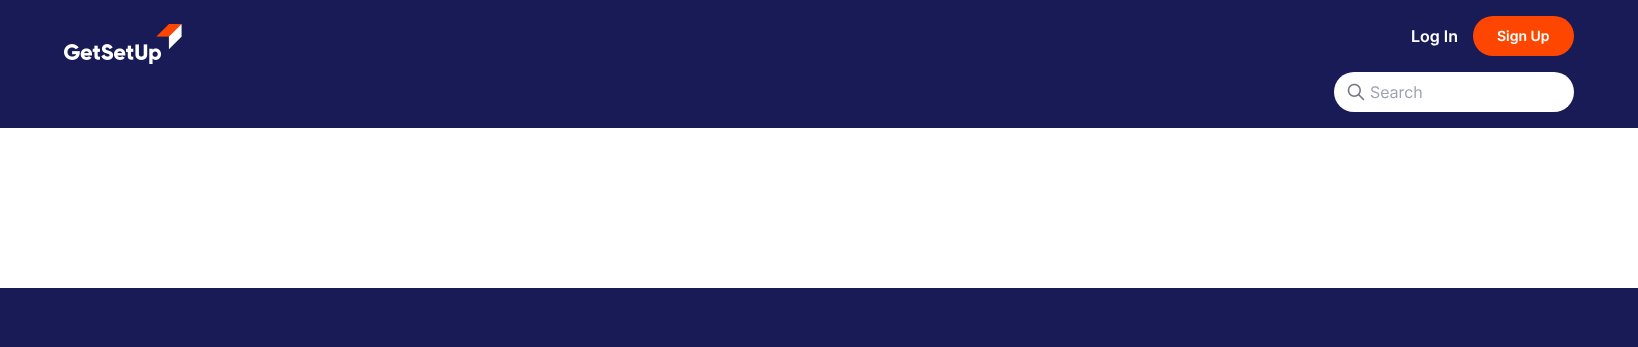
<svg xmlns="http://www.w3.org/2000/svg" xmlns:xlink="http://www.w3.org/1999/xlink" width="1638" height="347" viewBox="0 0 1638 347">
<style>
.cls-1{font:600 16px Inter;fill:#ffffff}
.cls-2{font:600 14px Inter;fill:#ffffff}
.cls-3{font:16px Inter;fill:#9ca3af}
</style>
<rect width="100%" height="100%" fill="#ffffff"/>
<rect fill="#181b56" x="0" y="0" width="1638" height="128"/>
<image xlink:href="image0.png" x="64" y="24" width="118" height="40"/>
<rect fill="#ff4600" x="1473" y="16" width="101" height="40" rx="20"/>
<rect fill="#ffffff" x="1334" y="72" width="240" height="40" rx="20"/>
<image xlink:href="image1.png" x="1347" y="83" width="18" height="18"/>
<rect fill="#181b56" x="0" y="288" width="1638" height="59"/>
<text class="cls-1" x="1411" y="42">Log In</text>
<text class="cls-2" x="1497" y="41">Sign Up</text>
<text class="cls-3" x="1370" y="98">Search</text>
</svg>
